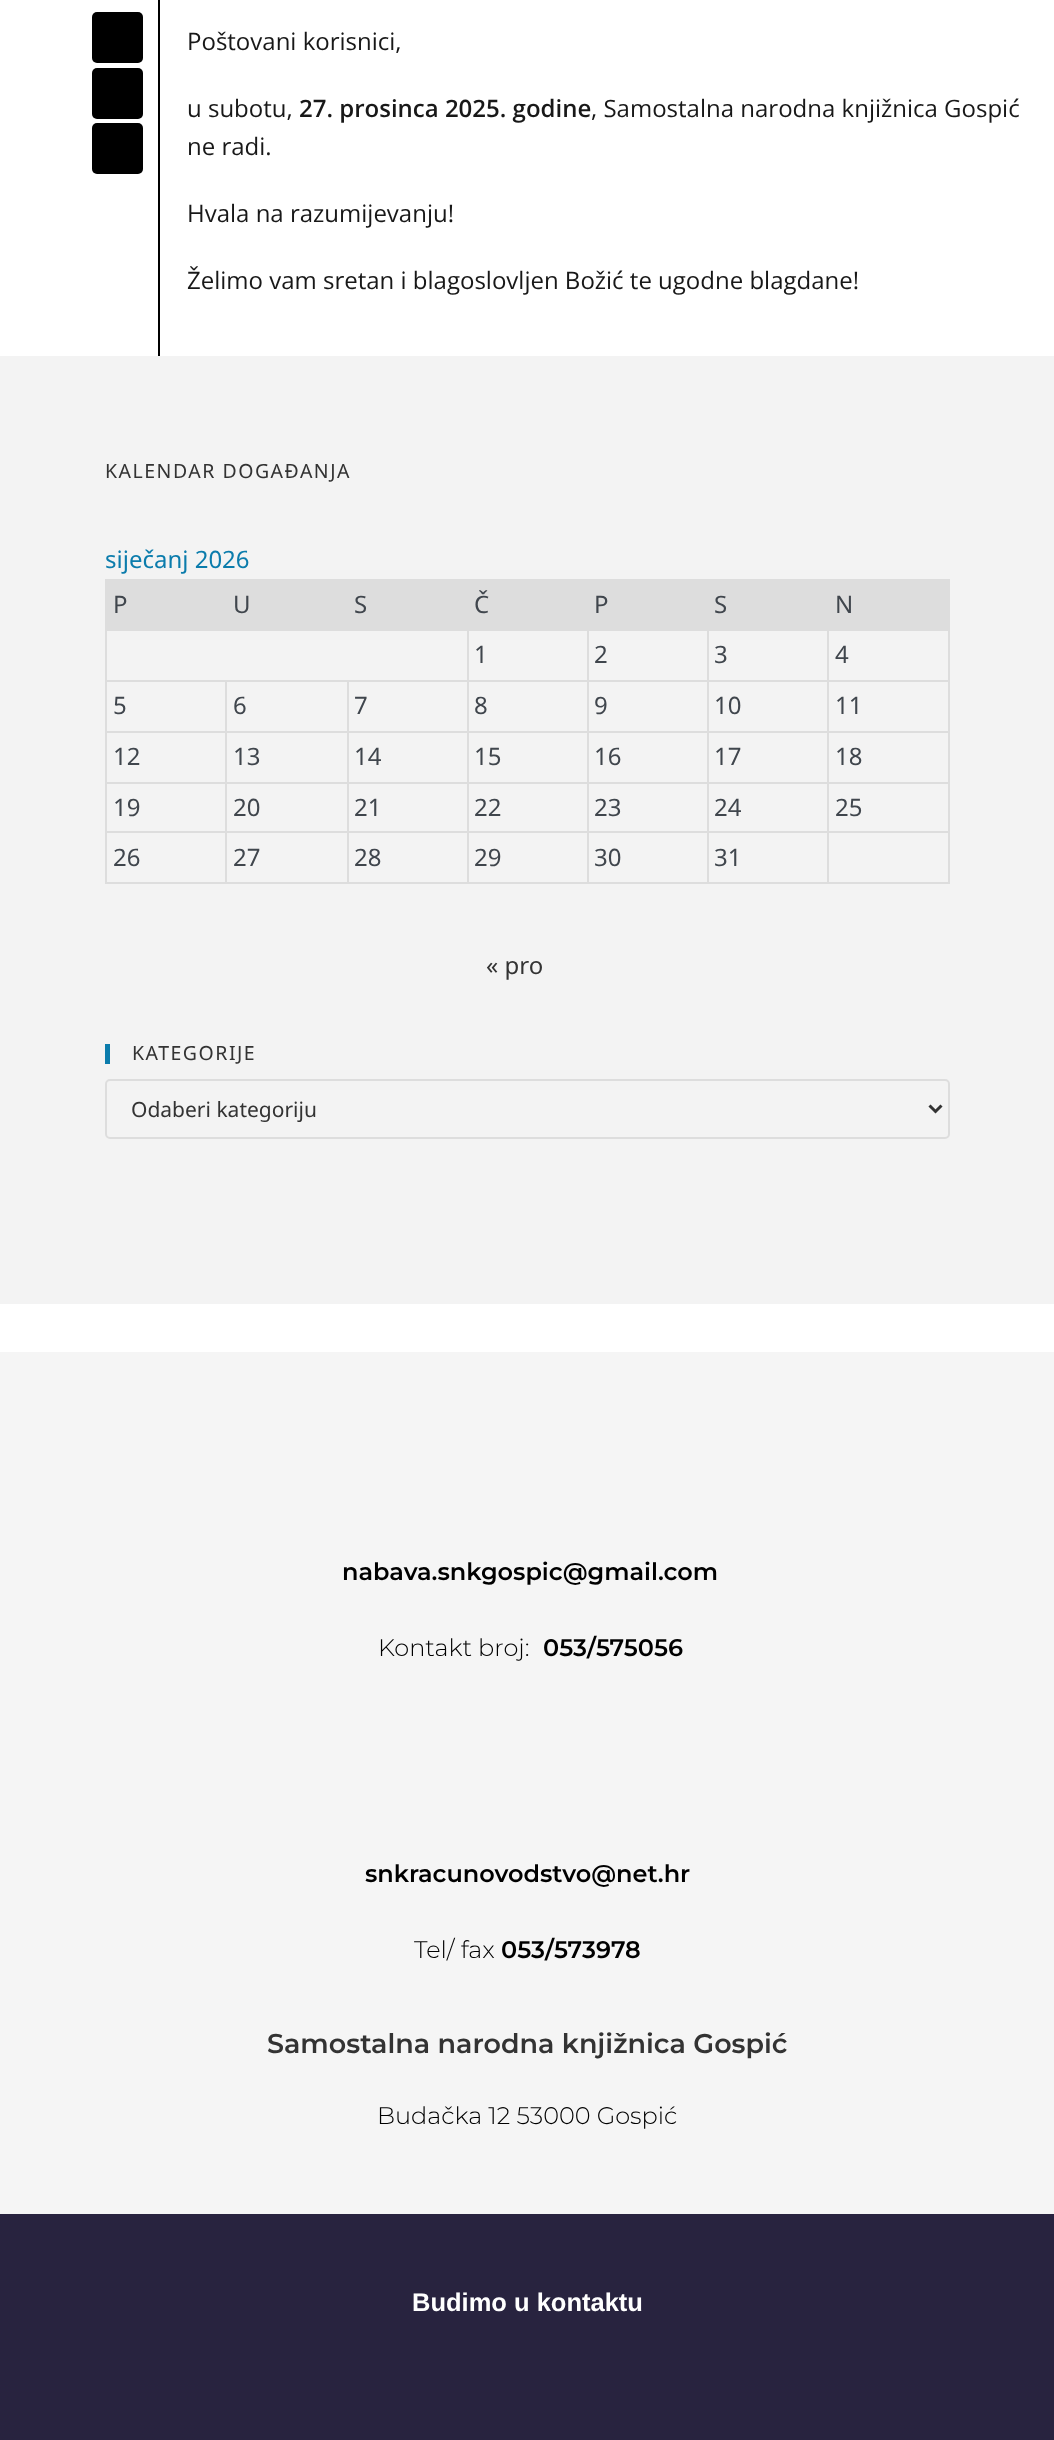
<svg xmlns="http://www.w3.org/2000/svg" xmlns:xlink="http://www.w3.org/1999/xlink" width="1054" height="2440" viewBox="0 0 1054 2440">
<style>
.cls-1{font:24px Open Sans;fill:#181818}
.cls-2{font:600 24px Open Sans;fill:#181818}
.cls-3{font:19.5px Noto Sans Tai Le;letter-spacing:1.5px;fill:#333333}
.cls-4{font:24px Noto Sans Tai Le;fill:#0b7cac}
.cls-5{font:24px Noto Sans Tai Le;fill:#40464d}
.cls-6{font:24px Noto Sans Tai Le;fill:#333333}
.cls-7{font:21px Noto Sans Tai Le;fill:#333333}
.cls-8{font:600 24px Montserrat;fill:#000000}
.cls-9{font:300 24px Montserrat;fill:#000000}
.cls-10{font:600 27px Montserrat;fill:#333333}
.cls-11{font:bold 25.5px Liberation Sans;fill:#ffffff}
</style>
<rect width="100%" height="100%" fill="#ffffff"/>
<rect fill="#000000" x="92" y="12" width="51" height="51" rx="5"/>
<rect fill="#000000" x="92" y="68" width="51" height="51" rx="5"/>
<rect fill="#000000" x="92" y="123" width="51" height="51" rx="5"/>
<rect fill="#000000" x="158" y="0" width="2" height="356"/>
<rect fill="#f3f3f3" x="0" y="356" width="1054" height="948"/>
<rect fill="#dddddd" x="107" y="581" width="120" height="48"/>
<rect fill="#dddddd" x="105" y="579" width="122" height="2"/>
<rect fill="#dddddd" x="827" y="629" width="123" height="2"/>
<rect fill="#dddddd" x="827" y="680" width="123" height="2"/>
<rect fill="#dddddd" x="827" y="731" width="123" height="2"/>
<rect fill="#dddddd" x="827" y="782" width="123" height="2"/>
<rect fill="#dddddd" x="827" y="831" width="123" height="2"/>
<rect fill="#dddddd" x="948" y="831" width="2" height="53"/>
<rect fill="#dddddd" x="827" y="882" width="123" height="2"/>
<rect fill="#dddddd" x="827" y="831" width="2" height="53"/>
<rect fill="#dddddd" x="707" y="831" width="121" height="2"/>
<rect fill="#dddddd" x="827" y="782" width="2" height="51"/>
<rect fill="#dddddd" x="707" y="782" width="121" height="2"/>
<rect fill="#dddddd" x="827" y="731" width="2" height="52"/>
<rect fill="#dddddd" x="707" y="731" width="121" height="2"/>
<rect fill="#dddddd" x="827" y="680" width="2" height="52"/>
<rect fill="#dddddd" x="707" y="680" width="121" height="2"/>
<rect fill="#dddddd" x="827" y="629" width="2" height="52"/>
<rect fill="#dddddd" x="707" y="629" width="121" height="2"/>
<rect fill="#dddddd" x="707" y="882" width="121" height="2"/>
<rect fill="#dddddd" x="707" y="831" width="2" height="53"/>
<rect fill="#dddddd" x="587" y="831" width="121" height="2"/>
<rect fill="#dddddd" x="707" y="782" width="2" height="51"/>
<rect fill="#dddddd" x="587" y="782" width="121" height="2"/>
<rect fill="#dddddd" x="707" y="731" width="2" height="52"/>
<rect fill="#dddddd" x="587" y="731" width="121" height="2"/>
<rect fill="#dddddd" x="707" y="680" width="2" height="52"/>
<rect fill="#dddddd" x="587" y="680" width="121" height="2"/>
<rect fill="#dddddd" x="707" y="629" width="2" height="52"/>
<rect fill="#dddddd" x="587" y="629" width="121" height="2"/>
<rect fill="#dddddd" x="587" y="882" width="121" height="2"/>
<rect fill="#dddddd" x="587" y="831" width="2" height="53"/>
<rect fill="#dddddd" x="467" y="831" width="121" height="2"/>
<rect fill="#dddddd" x="587" y="782" width="2" height="51"/>
<rect fill="#dddddd" x="467" y="782" width="121" height="2"/>
<rect fill="#dddddd" x="587" y="731" width="2" height="52"/>
<rect fill="#dddddd" x="467" y="731" width="121" height="2"/>
<rect fill="#dddddd" x="587" y="680" width="2" height="52"/>
<rect fill="#dddddd" x="467" y="680" width="121" height="2"/>
<rect fill="#dddddd" x="587" y="629" width="2" height="52"/>
<rect fill="#dddddd" x="467" y="629" width="121" height="2"/>
<rect fill="#dddddd" x="467" y="882" width="121" height="2"/>
<rect fill="#dddddd" x="467" y="831" width="2" height="53"/>
<rect fill="#dddddd" x="347" y="831" width="121" height="2"/>
<rect fill="#dddddd" x="467" y="782" width="2" height="51"/>
<rect fill="#dddddd" x="347" y="782" width="121" height="2"/>
<rect fill="#dddddd" x="467" y="731" width="2" height="52"/>
<rect fill="#dddddd" x="347" y="731" width="121" height="2"/>
<rect fill="#dddddd" x="467" y="680" width="2" height="52"/>
<rect fill="#dddddd" x="347" y="680" width="121" height="2"/>
<rect fill="#dddddd" x="467" y="629" width="2" height="52"/>
<rect fill="#dddddd" x="105" y="629" width="363" height="2"/>
<rect fill="#dddddd" x="347" y="882" width="121" height="2"/>
<rect fill="#dddddd" x="347" y="831" width="2" height="53"/>
<rect fill="#dddddd" x="225" y="831" width="123" height="2"/>
<rect fill="#dddddd" x="347" y="782" width="2" height="51"/>
<rect fill="#dddddd" x="225" y="782" width="123" height="2"/>
<rect fill="#dddddd" x="347" y="731" width="2" height="52"/>
<rect fill="#dddddd" x="225" y="731" width="123" height="2"/>
<rect fill="#dddddd" x="347" y="680" width="2" height="52"/>
<rect fill="#dddddd" x="225" y="680" width="123" height="2"/>
<rect fill="#dddddd" x="225" y="882" width="123" height="2"/>
<rect fill="#dddddd" x="225" y="831" width="2" height="53"/>
<rect fill="#dddddd" x="105" y="831" width="122" height="2"/>
<rect fill="#dddddd" x="225" y="782" width="2" height="51"/>
<rect fill="#dddddd" x="105" y="782" width="122" height="2"/>
<rect fill="#dddddd" x="225" y="731" width="2" height="52"/>
<rect fill="#dddddd" x="105" y="731" width="122" height="2"/>
<rect fill="#dddddd" x="225" y="680" width="2" height="52"/>
<rect fill="#dddddd" x="105" y="680" width="122" height="2"/>
<rect fill="#dddddd" x="105" y="882" width="122" height="2"/>
<rect fill="#dddddd" x="105" y="831" width="2" height="53"/>
<rect fill="#dddddd" x="105" y="782" width="2" height="51"/>
<rect fill="#dddddd" x="105" y="731" width="2" height="52"/>
<rect fill="#dddddd" x="105" y="680" width="2" height="52"/>
<rect fill="#dddddd" x="105" y="629" width="2" height="52"/>
<rect fill="#dddddd" x="105" y="579" width="2" height="51"/>
<rect fill="#dddddd" x="227" y="579" width="601" height="50"/>
<rect fill="#dddddd" x="828" y="581" width="120" height="48"/>
<rect fill="#dddddd" x="827" y="579" width="123" height="2"/>
<rect fill="#dddddd" x="948" y="782" width="2" height="51"/>
<rect fill="#dddddd" x="948" y="731" width="2" height="52"/>
<rect fill="#dddddd" x="948" y="680" width="2" height="52"/>
<rect fill="#dddddd" x="948" y="629" width="2" height="52"/>
<rect fill="#dddddd" x="948" y="579" width="2" height="51"/>
<rect fill="#0b7cac" x="105" y="1044" width="5" height="20"/>
<rect fill="none" stroke="#dddddd" stroke-width="2" x="106" y="1080" width="843" height="58" rx="4"/>
<path fill="none" stroke="#333333" stroke-width="3" d="M929.5 1105.5L935.5 1111.5L941.5 1105.5"/>
<rect fill="#f5f5f5" x="0" y="1352" width="1054" height="862"/>
<rect fill="#28233f" x="0" y="2214" width="1054" height="226"/>
<text class="cls-1" x="187" y="50">Poštovani korisnici,</text>
<text class="cls-1" x="187" y="117">u subotu,</text>
<text class="cls-2" x="299" y="117">27. prosinca 2025. godine</text>
<text class="cls-1" x="591" y="117">, Samostalna narodna knjižnica Gospić</text>
<text class="cls-1" x="187" y="155">ne radi.</text>
<text class="cls-1" x="187" y="222">Hvala na razumijevanju!</text>
<text class="cls-1" x="187" y="289">Želimo vam sretan i blagoslovljen Božić te ugodne blagdane!</text>
<text class="cls-3" x="105" y="478">KALENDAR DOGAĐANJA</text>
<text class="cls-4" x="105" y="568">siječanj 2026</text>
<text class="cls-5" x="113" y="613">P</text>
<text class="cls-5" x="233" y="613">U</text>
<text class="cls-5" x="354" y="613">S</text>
<text class="cls-5" x="474" y="613">Č</text>
<text class="cls-5" x="594" y="613">P</text>
<text class="cls-5" x="714" y="613">S</text>
<text class="cls-5" x="835" y="613">N</text>
<text class="cls-5" x="474" y="663">1</text>
<text class="cls-5" x="594" y="663">2</text>
<text class="cls-5" x="714" y="663">3</text>
<text class="cls-5" x="835" y="663">4</text>
<text class="cls-5" x="113" y="714">5</text>
<text class="cls-5" x="233" y="714">6</text>
<text class="cls-5" x="354" y="714">7</text>
<text class="cls-5" x="474" y="714">8</text>
<text class="cls-5" x="594" y="714">9</text>
<text class="cls-5" x="714" y="714">10</text>
<text class="cls-5" x="835" y="714">11</text>
<text class="cls-5" x="113" y="765">12</text>
<text class="cls-5" x="233" y="765">13</text>
<text class="cls-5" x="354" y="765">14</text>
<text class="cls-5" x="474" y="765">15</text>
<text class="cls-5" x="594" y="765">16</text>
<text class="cls-5" x="714" y="765">17</text>
<text class="cls-5" x="835" y="765">18</text>
<text class="cls-5" x="113" y="816">19</text>
<text class="cls-5" x="233" y="816">20</text>
<text class="cls-5" x="354" y="816">21</text>
<text class="cls-5" x="474" y="816">22</text>
<text class="cls-5" x="594" y="816">23</text>
<text class="cls-5" x="714" y="816">24</text>
<text class="cls-5" x="835" y="816">25</text>
<text class="cls-5" x="113" y="866">26</text>
<text class="cls-5" x="233" y="866">27</text>
<text class="cls-5" x="354" y="866">28</text>
<text class="cls-5" x="474" y="866">29</text>
<text class="cls-5" x="594" y="866">30</text>
<text class="cls-5" x="714" y="866">31</text>
<text class="cls-6" x="486" y="974">« pro</text>
<text class="cls-3" x="132" y="1060">KATEGORIJE</text>
<text class="cls-7" x="131" y="1117">Odaberi kategoriju</text>
<text class="cls-8" x="342" y="1580">nabava.snkgospic@gmail.com</text>
<text class="cls-9" x="378" y="1656">Kontakt broj:</text>
<text class="cls-8" x="543" y="1656">053/575056</text>
<text class="cls-8" x="365" y="1882">snkracunovodstvo@net.hr</text>
<text class="cls-9" x="414" y="1958">Tel/ fax</text>
<text class="cls-8" x="501" y="1958">053/573978</text>
<text class="cls-10" x="267" y="2053">Samostalna narodna knjižnica Gospić</text>
<text class="cls-9" x="377" y="2124">Budačka 12 53000 Gospić</text>
<text class="cls-11" x="412" y="2311">Budimo u kontaktu</text>
</svg>
